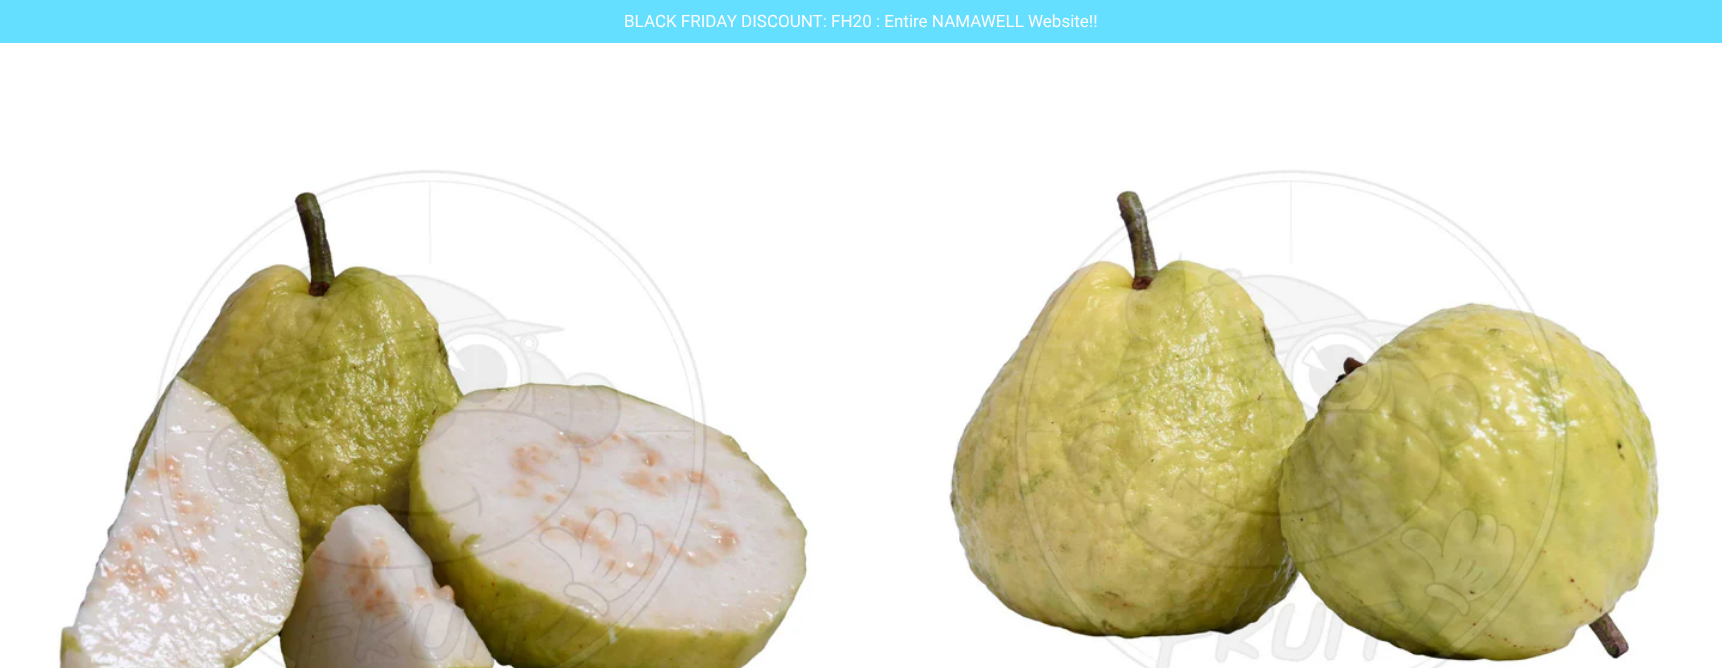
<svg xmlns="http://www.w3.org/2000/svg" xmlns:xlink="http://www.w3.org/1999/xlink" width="1722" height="668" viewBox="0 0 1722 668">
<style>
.cls-1{font:17px Roboto;fill:#fcfcfc}
</style>
<rect width="100%" height="100%" fill="#ffffff"/>
<rect fill="#64dfff" x="0" y="0" width="1722" height="43"/>
<image xlink:href="image0.png" x="54" y="169" width="758" height="499"/>
<image xlink:href="image1.png" x="947" y="169" width="760" height="499"/>
<text class="cls-1" x="624" y="27">BLACK FRIDAY DISCOUNT: FH20 : Entire NAMAWELL Website!!</text>
</svg>
